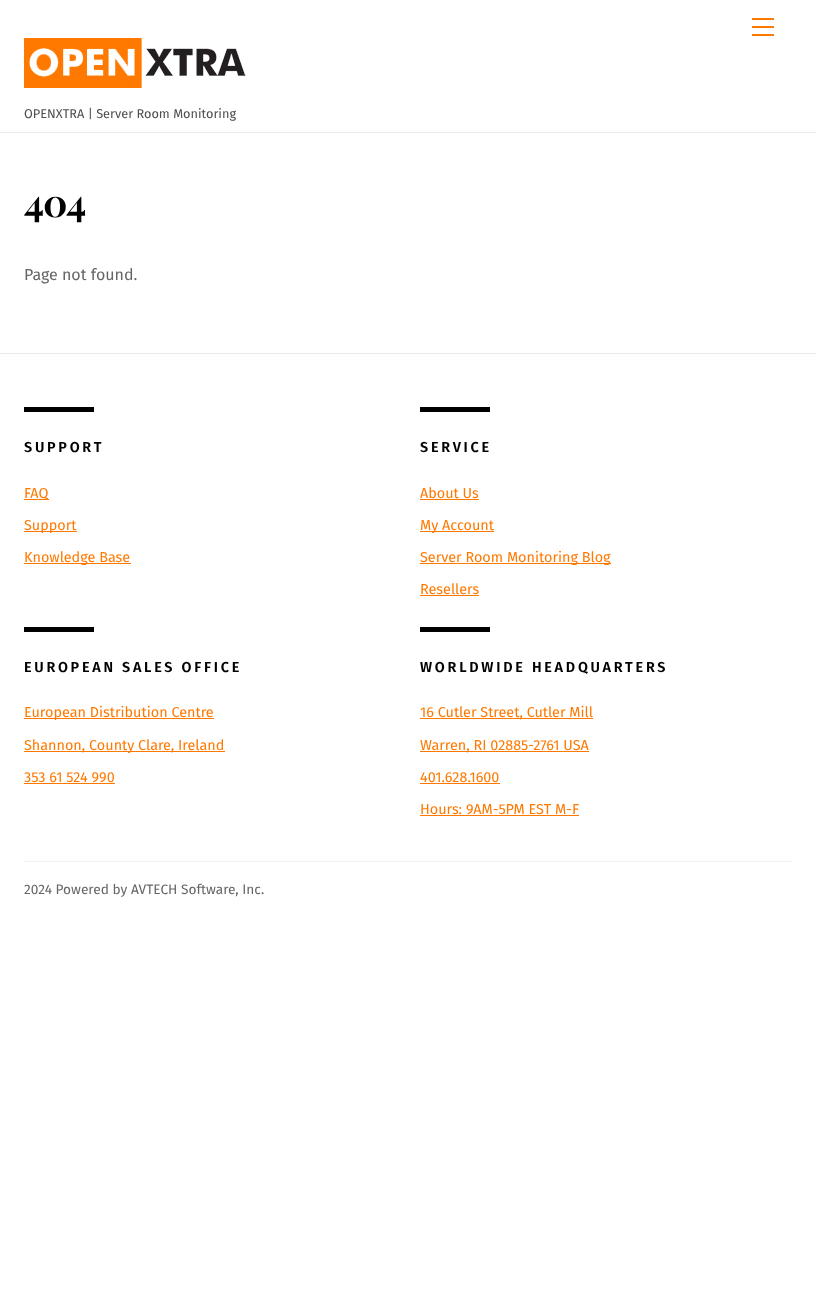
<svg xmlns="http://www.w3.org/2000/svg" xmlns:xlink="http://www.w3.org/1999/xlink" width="816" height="1290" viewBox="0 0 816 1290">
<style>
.cls-1{font:12.75px Fira Sans;fill:#4d4d4d}
.cls-2{font:bold 38px Playfair Display;letter-spacing:-1px;fill:#000000}
.cls-3{font:16px Fira Sans;fill:#666666}
.cls-4{font:600 14.4px Fira Sans;letter-spacing:2.75px;fill:#000000}
.cls-5{font:14.4px Fira Sans;fill:#ff7900}
.cls-6{font:13.7px Fira Sans;fill:#666666}
</style>
<rect width="100%" height="100%" fill="#ffffff"/>
<rect fill="#e9e9e9" x="0" y="132" width="816" height="1"/>
<rect fill="#ff7900" x="752" y="34" width="22" height="2"/>
<rect fill="#ff7900" x="752" y="18" width="22" height="2"/>
<rect fill="#ff7900" x="752" y="26" width="22" height="2"/>
<image xlink:href="image0.png" x="24" y="38" width="222" height="50"/>
<rect fill="#e9e9e9" x="0" y="353" width="816" height="1"/>
<rect fill="#000000" x="24" y="407" width="70" height="5"/>
<rect fill="#ff7900" x="24" y="499" width="25" height="1"/>
<rect fill="#ff7900" x="24" y="531" width="53" height="1"/>
<rect fill="#ff7900" x="24" y="563" width="107" height="1"/>
<rect fill="#000000" x="420" y="407" width="70" height="5"/>
<rect fill="#ff7900" x="420" y="499" width="59" height="1"/>
<rect fill="#ff7900" x="420" y="531" width="74" height="1"/>
<rect fill="#ff7900" x="420" y="563" width="191" height="1"/>
<rect fill="#ff7900" x="420" y="595" width="59" height="1"/>
<rect fill="#000000" x="24" y="627" width="70" height="5"/>
<rect fill="#ff7900" x="24" y="718" width="190" height="1"/>
<rect fill="#ff7900" x="24" y="751" width="201" height="1"/>
<rect fill="#ff7900" x="24" y="783" width="91" height="1"/>
<rect fill="#000000" x="420" y="627" width="70" height="5"/>
<rect fill="#ff7900" x="420" y="718" width="173" height="1"/>
<rect fill="#ff7900" x="420" y="751" width="169" height="1"/>
<rect fill="#ff7900" x="420" y="783" width="80" height="1"/>
<rect fill="#ff7900" x="420" y="815" width="159" height="1"/>
<rect fill="#f2f2f2" x="24" y="861" width="768" height="1"/>
<text class="cls-1" x="24" y="118">OPENXTRA | Server Room Monitoring</text>
<text class="cls-2" x="24" y="217">404</text>
<text class="cls-3" x="24" y="280">Page not found.</text>
<text class="cls-4" x="24" y="452">SUPPORT</text>
<text class="cls-5" x="24" y="498">FAQ</text>
<text class="cls-5" x="24" y="530">Support</text>
<text class="cls-5" x="24" y="562">Knowledge Base</text>
<text class="cls-4" x="420" y="452">SERVICE</text>
<text class="cls-5" x="420" y="498">About Us</text>
<text class="cls-5" x="420" y="530">My Account</text>
<text class="cls-5" x="420" y="562">Server Room Monitoring Blog</text>
<text class="cls-5" x="420" y="594">Resellers</text>
<text class="cls-4" x="24" y="672">EUROPEAN SALES OFFICE</text>
<text class="cls-5" x="24" y="717">European Distribution Centre</text>
<text class="cls-5" x="24" y="750">Shannon, County Clare, Ireland</text>
<text class="cls-5" x="24" y="782">353 61 524 990</text>
<text class="cls-4" x="420" y="672">WORLDWIDE HEADQUARTERS</text>
<text class="cls-5" x="420" y="717">16 Cutler Street, Cutler Mill</text>
<text class="cls-5" x="420" y="750">Warren, RI 02885-2761 USA</text>
<text class="cls-5" x="420" y="782">401.628.1600</text>
<text class="cls-5" x="420" y="814">Hours: 9AM-5PM EST M-F</text>
<text class="cls-6" x="24" y="894">2024 Powered by AVTECH Software, Inc.</text>
</svg>
